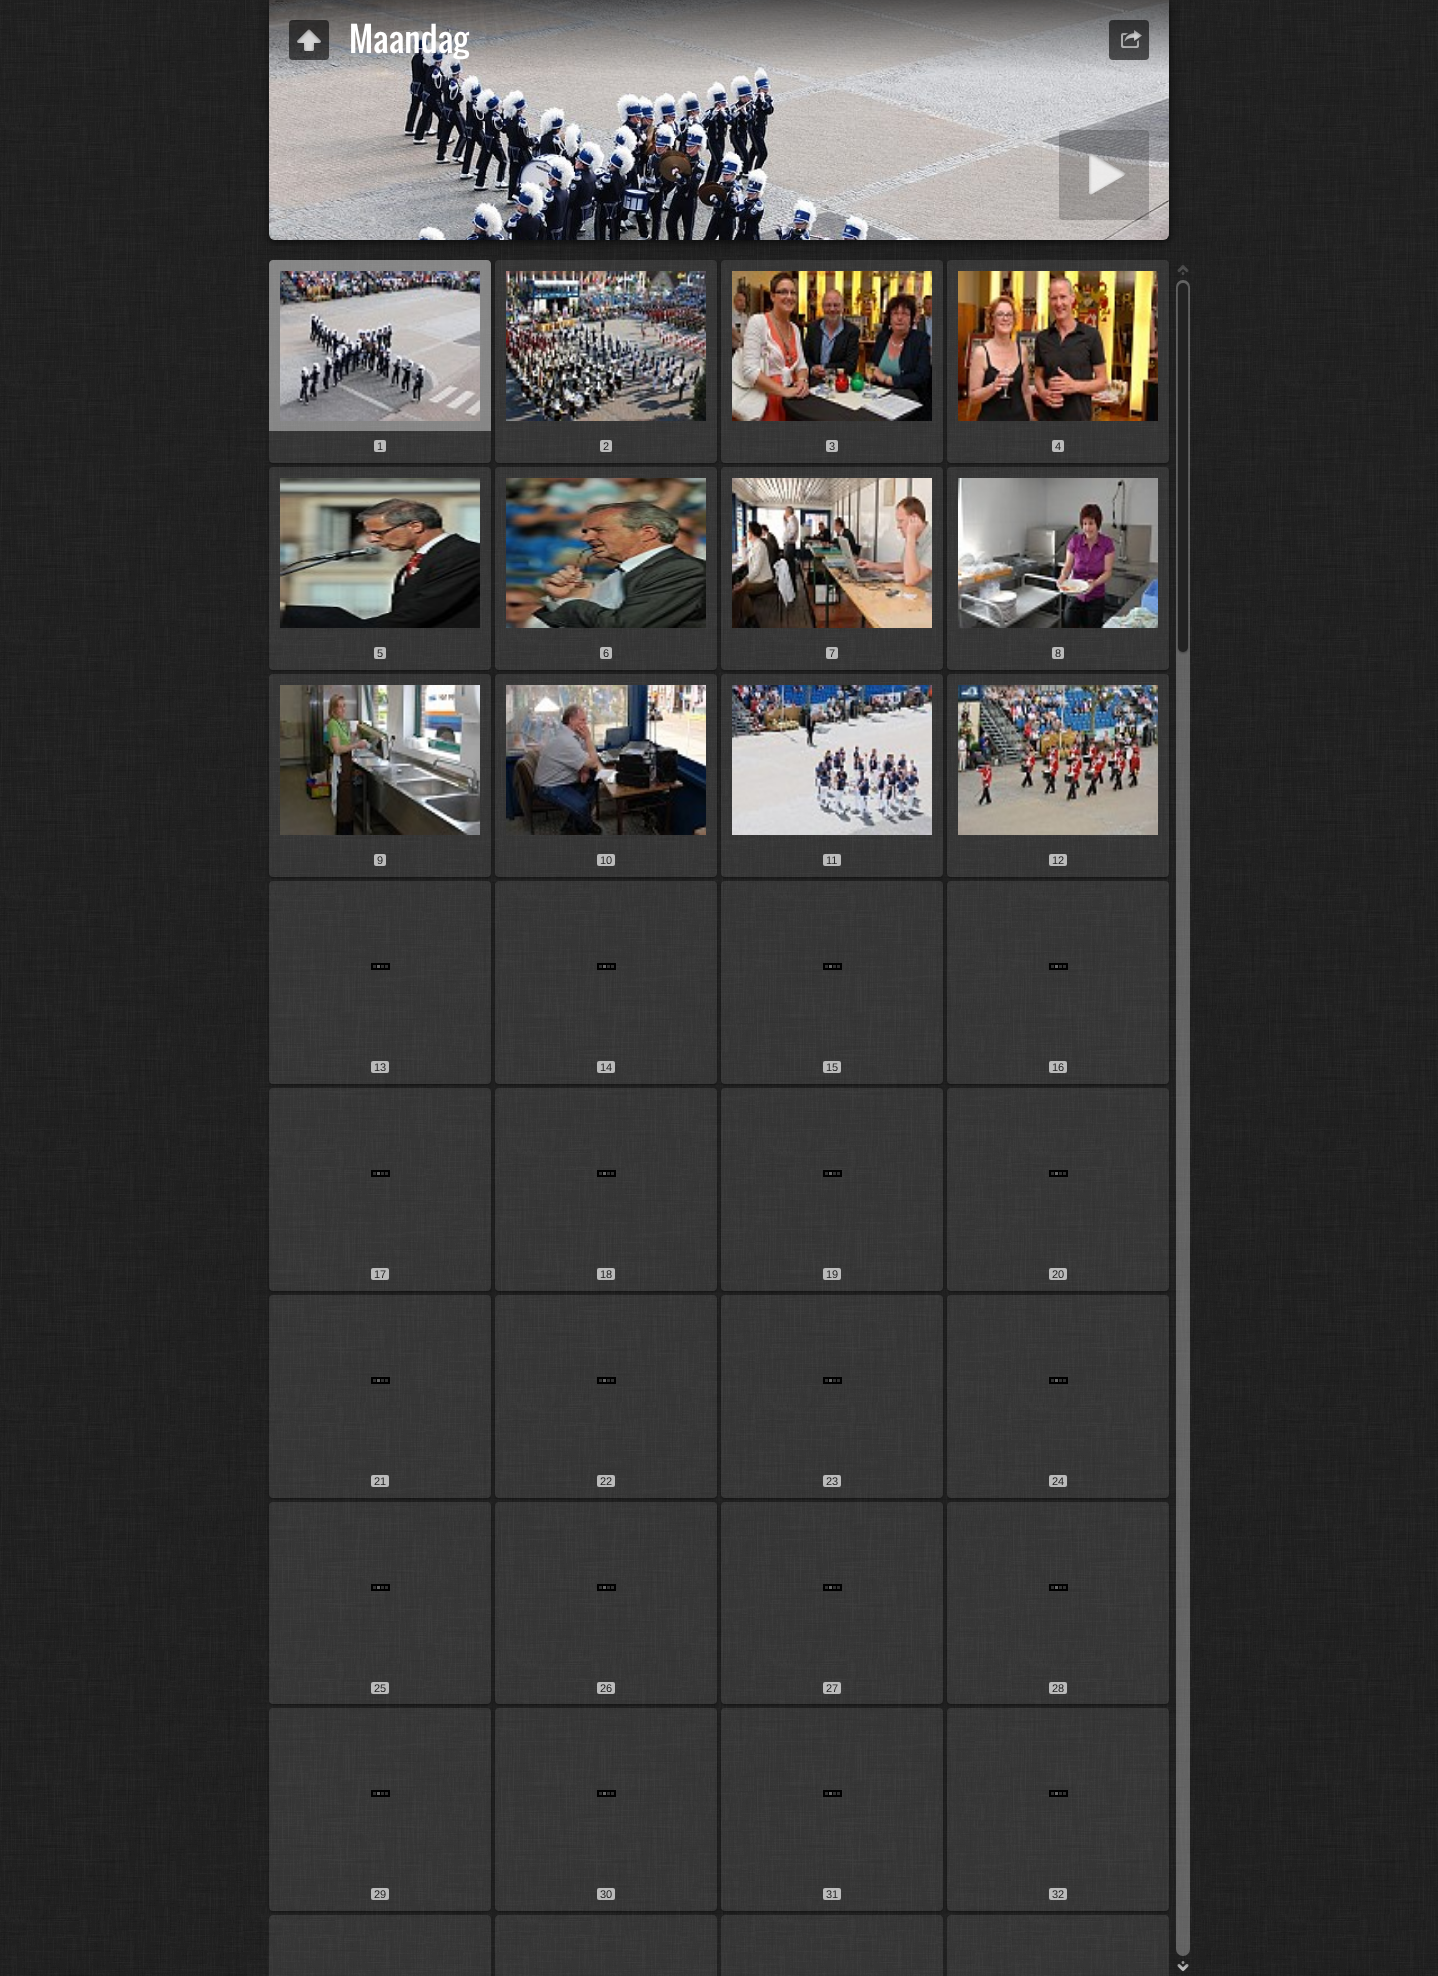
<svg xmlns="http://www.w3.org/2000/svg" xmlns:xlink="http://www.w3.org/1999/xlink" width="1438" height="1976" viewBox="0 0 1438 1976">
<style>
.cls-1{font:33.5px Oswald;fill:#ffffff}
.cls-2{font:11px Liberation Sans;fill:#222222}
</style>
<defs>
<clipPath id="clip1"><path d="M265 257H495V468H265ZM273 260H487C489 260 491 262 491 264V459C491 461 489 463 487 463H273C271 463 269 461 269 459V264C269 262 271 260 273 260Z" clip-rule="evenodd"/></clipPath>
<clipPath id="clip2"><path d="M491 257H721V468H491ZM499 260H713C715 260 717 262 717 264V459C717 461 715 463 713 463H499C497 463 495 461 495 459V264C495 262 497 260 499 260Z" clip-rule="evenodd"/></clipPath>
<clipPath id="clip3"><path d="M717 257H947V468H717ZM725 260H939C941 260 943 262 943 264V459C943 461 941 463 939 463H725C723 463 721 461 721 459V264C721 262 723 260 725 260Z" clip-rule="evenodd"/></clipPath>
<clipPath id="clip4"><path d="M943 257H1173V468H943ZM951 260H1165C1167 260 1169 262 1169 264V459C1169 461 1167 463 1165 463H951C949 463 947 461 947 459V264C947 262 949 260 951 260Z" clip-rule="evenodd"/></clipPath>
<clipPath id="clip5"><path d="M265 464H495V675H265ZM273 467H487C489 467 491 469 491 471V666C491 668 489 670 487 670H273C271 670 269 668 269 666V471C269 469 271 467 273 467Z" clip-rule="evenodd"/></clipPath>
<clipPath id="clip6"><path d="M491 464H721V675H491ZM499 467H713C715 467 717 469 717 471V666C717 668 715 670 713 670H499C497 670 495 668 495 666V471C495 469 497 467 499 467Z" clip-rule="evenodd"/></clipPath>
<clipPath id="clip7"><path d="M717 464H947V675H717ZM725 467H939C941 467 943 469 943 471V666C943 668 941 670 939 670H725C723 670 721 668 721 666V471C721 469 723 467 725 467Z" clip-rule="evenodd"/></clipPath>
<clipPath id="clip8"><path d="M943 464H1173V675H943ZM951 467H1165C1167 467 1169 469 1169 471V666C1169 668 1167 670 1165 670H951C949 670 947 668 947 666V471C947 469 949 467 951 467Z" clip-rule="evenodd"/></clipPath>
<clipPath id="clip9"><path d="M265 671H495V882H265ZM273 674H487C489 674 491 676 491 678V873C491 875 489 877 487 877H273C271 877 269 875 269 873V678C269 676 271 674 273 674Z" clip-rule="evenodd"/></clipPath>
<clipPath id="clip10"><path d="M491 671H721V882H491ZM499 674H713C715 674 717 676 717 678V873C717 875 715 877 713 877H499C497 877 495 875 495 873V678C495 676 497 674 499 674Z" clip-rule="evenodd"/></clipPath>
<clipPath id="clip11"><path d="M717 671H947V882H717ZM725 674H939C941 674 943 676 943 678V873C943 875 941 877 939 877H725C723 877 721 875 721 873V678C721 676 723 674 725 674Z" clip-rule="evenodd"/></clipPath>
<clipPath id="clip12"><path d="M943 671H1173V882H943ZM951 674H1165C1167 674 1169 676 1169 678V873C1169 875 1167 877 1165 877H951C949 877 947 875 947 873V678C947 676 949 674 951 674Z" clip-rule="evenodd"/></clipPath>
<clipPath id="clip13"><path d="M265 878H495V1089H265ZM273 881H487C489 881 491 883 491 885V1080C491 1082 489 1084 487 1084H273C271 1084 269 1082 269 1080V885C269 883 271 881 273 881Z" clip-rule="evenodd"/></clipPath>
<clipPath id="clip14"><path d="M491 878H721V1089H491ZM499 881H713C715 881 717 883 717 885V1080C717 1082 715 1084 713 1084H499C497 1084 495 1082 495 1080V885C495 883 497 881 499 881Z" clip-rule="evenodd"/></clipPath>
<clipPath id="clip15"><path d="M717 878H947V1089H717ZM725 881H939C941 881 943 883 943 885V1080C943 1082 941 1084 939 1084H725C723 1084 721 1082 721 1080V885C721 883 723 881 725 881Z" clip-rule="evenodd"/></clipPath>
<clipPath id="clip16"><path d="M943 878H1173V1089H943ZM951 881H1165C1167 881 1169 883 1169 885V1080C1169 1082 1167 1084 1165 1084H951C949 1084 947 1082 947 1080V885C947 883 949 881 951 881Z" clip-rule="evenodd"/></clipPath>
<clipPath id="clip17"><path d="M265 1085H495V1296H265ZM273 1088H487C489 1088 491 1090 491 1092V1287C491 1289 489 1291 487 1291H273C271 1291 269 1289 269 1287V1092C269 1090 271 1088 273 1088Z" clip-rule="evenodd"/></clipPath>
<clipPath id="clip18"><path d="M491 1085H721V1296H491ZM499 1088H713C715 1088 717 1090 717 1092V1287C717 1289 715 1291 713 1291H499C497 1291 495 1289 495 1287V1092C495 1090 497 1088 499 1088Z" clip-rule="evenodd"/></clipPath>
<clipPath id="clip19"><path d="M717 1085H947V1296H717ZM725 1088H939C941 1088 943 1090 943 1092V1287C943 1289 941 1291 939 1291H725C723 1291 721 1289 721 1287V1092C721 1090 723 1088 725 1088Z" clip-rule="evenodd"/></clipPath>
<clipPath id="clip20"><path d="M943 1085H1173V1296H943ZM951 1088H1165C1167 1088 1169 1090 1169 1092V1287C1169 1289 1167 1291 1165 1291H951C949 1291 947 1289 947 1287V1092C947 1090 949 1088 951 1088Z" clip-rule="evenodd"/></clipPath>
<clipPath id="clip21"><path d="M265 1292H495V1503H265ZM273 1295H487C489 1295 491 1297 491 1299V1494C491 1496 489 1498 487 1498H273C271 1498 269 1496 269 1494V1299C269 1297 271 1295 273 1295Z" clip-rule="evenodd"/></clipPath>
<clipPath id="clip22"><path d="M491 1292H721V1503H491ZM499 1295H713C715 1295 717 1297 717 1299V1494C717 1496 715 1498 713 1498H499C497 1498 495 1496 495 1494V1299C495 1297 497 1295 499 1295Z" clip-rule="evenodd"/></clipPath>
<clipPath id="clip23"><path d="M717 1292H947V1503H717ZM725 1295H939C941 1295 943 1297 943 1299V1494C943 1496 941 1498 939 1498H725C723 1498 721 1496 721 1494V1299C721 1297 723 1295 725 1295Z" clip-rule="evenodd"/></clipPath>
<clipPath id="clip24"><path d="M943 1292H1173V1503H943ZM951 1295H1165C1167 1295 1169 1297 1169 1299V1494C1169 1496 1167 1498 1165 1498H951C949 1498 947 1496 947 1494V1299C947 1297 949 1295 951 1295Z" clip-rule="evenodd"/></clipPath>
<clipPath id="clip25"><path d="M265 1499H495V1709H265ZM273 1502H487C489 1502 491 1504 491 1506V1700C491 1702 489 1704 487 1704H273C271 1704 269 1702 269 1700V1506C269 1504 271 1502 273 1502Z" clip-rule="evenodd"/></clipPath>
<clipPath id="clip26"><path d="M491 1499H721V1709H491ZM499 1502H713C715 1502 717 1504 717 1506V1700C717 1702 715 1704 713 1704H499C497 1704 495 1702 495 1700V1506C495 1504 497 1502 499 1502Z" clip-rule="evenodd"/></clipPath>
<clipPath id="clip27"><path d="M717 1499H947V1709H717ZM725 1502H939C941 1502 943 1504 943 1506V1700C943 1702 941 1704 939 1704H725C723 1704 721 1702 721 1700V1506C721 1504 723 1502 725 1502Z" clip-rule="evenodd"/></clipPath>
<clipPath id="clip28"><path d="M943 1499H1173V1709H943ZM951 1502H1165C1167 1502 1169 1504 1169 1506V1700C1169 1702 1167 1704 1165 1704H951C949 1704 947 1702 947 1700V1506C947 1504 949 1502 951 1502Z" clip-rule="evenodd"/></clipPath>
<clipPath id="clip29"><path d="M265 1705H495V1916H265ZM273 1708H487C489 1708 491 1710 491 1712V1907C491 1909 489 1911 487 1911H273C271 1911 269 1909 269 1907V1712C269 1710 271 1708 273 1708Z" clip-rule="evenodd"/></clipPath>
<clipPath id="clip30"><path d="M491 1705H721V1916H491ZM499 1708H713C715 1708 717 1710 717 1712V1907C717 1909 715 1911 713 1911H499C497 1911 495 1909 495 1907V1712C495 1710 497 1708 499 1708Z" clip-rule="evenodd"/></clipPath>
<clipPath id="clip31"><path d="M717 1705H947V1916H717ZM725 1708H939C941 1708 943 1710 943 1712V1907C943 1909 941 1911 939 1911H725C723 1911 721 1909 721 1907V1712C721 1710 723 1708 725 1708Z" clip-rule="evenodd"/></clipPath>
<clipPath id="clip32"><path d="M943 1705H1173V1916H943ZM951 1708H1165C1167 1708 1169 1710 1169 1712V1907C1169 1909 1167 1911 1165 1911H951C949 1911 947 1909 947 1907V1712C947 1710 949 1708 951 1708Z" clip-rule="evenodd"/></clipPath>
</defs>
<rect width="100%" height="100%" fill="#222222"/>
<image xlink:href="image0.png" x="0" y="0" width="1438" height="1976"/>
<rect fill="#000000" fill-opacity="0.6" filter="blur(4px)" x="270" y="3" width="900" height="240" rx="6"/>
<image xlink:href="image1.png" x="269" y="0" width="900" height="240"/>
<rect fill="#000000" fill-opacity="0.6" x="289" y="20" width="40" height="40" rx="4"/>
<image xlink:href="image2.png" x="297" y="29" width="24" height="22"/>
<rect fill="#000000" fill-opacity="0.6" x="1109" y="20" width="40" height="40" rx="4"/>
<image xlink:href="image3.png" x="1121" y="30" width="21" height="18"/>
<rect fill="#000000" fill-opacity="0.2" x="1059" y="130" width="90" height="90" rx="4"/>
<image xlink:href="image4.png" x="1089" y="153" width="36" height="42"/>
<image xlink:href="image5.png" x="1177" y="265" width="12" height="10"/>
<g clip-path="url(#clip1)">
<rect fill="#000000" fill-opacity="0.4" filter="blur(1px)" x="269" y="261" width="222" height="203" rx="4"/>
</g>
<rect fill="#ffffff" fill-opacity="0.1" x="269" y="260" width="222" height="203" rx="4"/>
<path fill="#ffffff" fill-opacity="0.4" d="M273 260H487C489 260 491 262 491 264V431H269V264C269 262 271 260 273 260Z"/>
<image xlink:href="image6.png" x="280" y="271" width="200" height="150"/>
<rect fill="#bbbbbb" x="374" y="440" width="12" height="12" rx="2"/>
<g clip-path="url(#clip2)">
<rect fill="#000000" fill-opacity="0.4" filter="blur(1px)" x="495" y="261" width="222" height="203" rx="4"/>
</g>
<rect fill="#ffffff" fill-opacity="0.1" x="495" y="260" width="222" height="203" rx="4"/>
<image xlink:href="image7.png" x="506" y="271" width="200" height="150"/>
<rect fill="#bbbbbb" x="600" y="440" width="12" height="12" rx="2"/>
<g clip-path="url(#clip3)">
<rect fill="#000000" fill-opacity="0.4" filter="blur(1px)" x="721" y="261" width="222" height="203" rx="4"/>
</g>
<rect fill="#ffffff" fill-opacity="0.1" x="721" y="260" width="222" height="203" rx="4"/>
<image xlink:href="image8.png" x="732" y="271" width="200" height="150"/>
<rect fill="#bbbbbb" x="826" y="440" width="12" height="12" rx="2"/>
<g clip-path="url(#clip4)">
<rect fill="#000000" fill-opacity="0.4" filter="blur(1px)" x="947" y="261" width="222" height="203" rx="4"/>
</g>
<rect fill="#ffffff" fill-opacity="0.1" x="947" y="260" width="222" height="203" rx="4"/>
<image xlink:href="image9.png" x="958" y="271" width="200" height="150"/>
<rect fill="#bbbbbb" x="1052" y="440" width="12" height="12" rx="2"/>
<g clip-path="url(#clip5)">
<rect fill="#000000" fill-opacity="0.4" filter="blur(1px)" x="269" y="468" width="222" height="203" rx="4"/>
</g>
<rect fill="#ffffff" fill-opacity="0.1" x="269" y="467" width="222" height="203" rx="4"/>
<image xlink:href="image10.png" x="280" y="478" width="200" height="150"/>
<rect fill="#bbbbbb" x="374" y="647" width="12" height="12" rx="2"/>
<g clip-path="url(#clip6)">
<rect fill="#000000" fill-opacity="0.4" filter="blur(1px)" x="495" y="468" width="222" height="203" rx="4"/>
</g>
<rect fill="#ffffff" fill-opacity="0.1" x="495" y="467" width="222" height="203" rx="4"/>
<image xlink:href="image11.png" x="506" y="478" width="200" height="150"/>
<rect fill="#bbbbbb" x="600" y="647" width="12" height="12" rx="2"/>
<g clip-path="url(#clip7)">
<rect fill="#000000" fill-opacity="0.4" filter="blur(1px)" x="721" y="468" width="222" height="203" rx="4"/>
</g>
<rect fill="#ffffff" fill-opacity="0.1" x="721" y="467" width="222" height="203" rx="4"/>
<image xlink:href="image12.png" x="732" y="478" width="200" height="150"/>
<rect fill="#bbbbbb" x="826" y="647" width="12" height="12" rx="2"/>
<g clip-path="url(#clip8)">
<rect fill="#000000" fill-opacity="0.4" filter="blur(1px)" x="947" y="468" width="222" height="203" rx="4"/>
</g>
<rect fill="#ffffff" fill-opacity="0.1" x="947" y="467" width="222" height="203" rx="4"/>
<image xlink:href="image13.png" x="958" y="478" width="200" height="150"/>
<rect fill="#bbbbbb" x="1052" y="647" width="12" height="12" rx="2"/>
<g clip-path="url(#clip9)">
<rect fill="#000000" fill-opacity="0.4" filter="blur(1px)" x="269" y="675" width="222" height="203" rx="4"/>
</g>
<rect fill="#ffffff" fill-opacity="0.1" x="269" y="674" width="222" height="203" rx="4"/>
<image xlink:href="image14.png" x="280" y="685" width="200" height="150"/>
<rect fill="#bbbbbb" x="374" y="854" width="12" height="12" rx="2"/>
<g clip-path="url(#clip10)">
<rect fill="#000000" fill-opacity="0.4" filter="blur(1px)" x="495" y="675" width="222" height="203" rx="4"/>
</g>
<rect fill="#ffffff" fill-opacity="0.1" x="495" y="674" width="222" height="203" rx="4"/>
<image xlink:href="image15.png" x="506" y="685" width="200" height="150"/>
<rect fill="#bbbbbb" x="597" y="854" width="18" height="12" rx="2"/>
<g clip-path="url(#clip11)">
<rect fill="#000000" fill-opacity="0.4" filter="blur(1px)" x="721" y="675" width="222" height="203" rx="4"/>
</g>
<rect fill="#ffffff" fill-opacity="0.1" x="721" y="674" width="222" height="203" rx="4"/>
<image xlink:href="image16.png" x="732" y="685" width="200" height="150"/>
<rect fill="#bbbbbb" x="823" y="854" width="18" height="12" rx="2"/>
<g clip-path="url(#clip12)">
<rect fill="#000000" fill-opacity="0.4" filter="blur(1px)" x="947" y="675" width="222" height="203" rx="4"/>
</g>
<rect fill="#ffffff" fill-opacity="0.1" x="947" y="674" width="222" height="203" rx="4"/>
<image xlink:href="image17.png" x="958" y="685" width="200" height="150"/>
<rect fill="#bbbbbb" x="1049" y="854" width="18" height="12" rx="2"/>
<g clip-path="url(#clip13)">
<rect fill="#000000" fill-opacity="0.4" filter="blur(1px)" x="269" y="882" width="222" height="203" rx="4"/>
</g>
<rect fill="#ffffff" fill-opacity="0.1" x="269" y="881" width="222" height="203" rx="4"/>
<image xlink:href="image18.png" x="371" y="963" width="19" height="7"/>
<rect fill="#bbbbbb" x="371" y="1061" width="18" height="12" rx="2"/>
<g clip-path="url(#clip14)">
<rect fill="#000000" fill-opacity="0.4" filter="blur(1px)" x="495" y="882" width="222" height="203" rx="4"/>
</g>
<rect fill="#ffffff" fill-opacity="0.1" x="495" y="881" width="222" height="203" rx="4"/>
<image xlink:href="image18.png" x="597" y="963" width="19" height="7"/>
<rect fill="#bbbbbb" x="597" y="1061" width="18" height="12" rx="2"/>
<g clip-path="url(#clip15)">
<rect fill="#000000" fill-opacity="0.4" filter="blur(1px)" x="721" y="882" width="222" height="203" rx="4"/>
</g>
<rect fill="#ffffff" fill-opacity="0.1" x="721" y="881" width="222" height="203" rx="4"/>
<image xlink:href="image18.png" x="823" y="963" width="19" height="7"/>
<rect fill="#bbbbbb" x="823" y="1061" width="18" height="12" rx="2"/>
<g clip-path="url(#clip16)">
<rect fill="#000000" fill-opacity="0.4" filter="blur(1px)" x="947" y="882" width="222" height="203" rx="4"/>
</g>
<rect fill="#ffffff" fill-opacity="0.1" x="947" y="881" width="222" height="203" rx="4"/>
<image xlink:href="image18.png" x="1049" y="963" width="19" height="7"/>
<rect fill="#bbbbbb" x="1049" y="1061" width="18" height="12" rx="2"/>
<g clip-path="url(#clip17)">
<rect fill="#000000" fill-opacity="0.4" filter="blur(1px)" x="269" y="1089" width="222" height="203" rx="4"/>
</g>
<rect fill="#ffffff" fill-opacity="0.1" x="269" y="1088" width="222" height="203" rx="4"/>
<image xlink:href="image18.png" x="371" y="1170" width="19" height="7"/>
<rect fill="#bbbbbb" x="371" y="1268" width="18" height="12" rx="2"/>
<g clip-path="url(#clip18)">
<rect fill="#000000" fill-opacity="0.4" filter="blur(1px)" x="495" y="1089" width="222" height="203" rx="4"/>
</g>
<rect fill="#ffffff" fill-opacity="0.1" x="495" y="1088" width="222" height="203" rx="4"/>
<image xlink:href="image18.png" x="597" y="1170" width="19" height="7"/>
<rect fill="#bbbbbb" x="597" y="1268" width="18" height="12" rx="2"/>
<g clip-path="url(#clip19)">
<rect fill="#000000" fill-opacity="0.4" filter="blur(1px)" x="721" y="1089" width="222" height="203" rx="4"/>
</g>
<rect fill="#ffffff" fill-opacity="0.1" x="721" y="1088" width="222" height="203" rx="4"/>
<image xlink:href="image18.png" x="823" y="1170" width="19" height="7"/>
<rect fill="#bbbbbb" x="823" y="1268" width="18" height="12" rx="2"/>
<g clip-path="url(#clip20)">
<rect fill="#000000" fill-opacity="0.4" filter="blur(1px)" x="947" y="1089" width="222" height="203" rx="4"/>
</g>
<rect fill="#ffffff" fill-opacity="0.1" x="947" y="1088" width="222" height="203" rx="4"/>
<image xlink:href="image18.png" x="1049" y="1170" width="19" height="7"/>
<rect fill="#bbbbbb" x="1049" y="1268" width="18" height="12" rx="2"/>
<g clip-path="url(#clip21)">
<rect fill="#000000" fill-opacity="0.4" filter="blur(1px)" x="269" y="1296" width="222" height="203" rx="4"/>
</g>
<rect fill="#ffffff" fill-opacity="0.1" x="269" y="1295" width="222" height="203" rx="4"/>
<image xlink:href="image18.png" x="371" y="1377" width="19" height="7"/>
<rect fill="#bbbbbb" x="371" y="1475" width="18" height="12" rx="2"/>
<g clip-path="url(#clip22)">
<rect fill="#000000" fill-opacity="0.4" filter="blur(1px)" x="495" y="1296" width="222" height="203" rx="4"/>
</g>
<rect fill="#ffffff" fill-opacity="0.1" x="495" y="1295" width="222" height="203" rx="4"/>
<image xlink:href="image18.png" x="597" y="1377" width="19" height="7"/>
<rect fill="#bbbbbb" x="597" y="1475" width="18" height="12" rx="2"/>
<g clip-path="url(#clip23)">
<rect fill="#000000" fill-opacity="0.4" filter="blur(1px)" x="721" y="1296" width="222" height="203" rx="4"/>
</g>
<rect fill="#ffffff" fill-opacity="0.1" x="721" y="1295" width="222" height="203" rx="4"/>
<image xlink:href="image18.png" x="823" y="1377" width="19" height="7"/>
<rect fill="#bbbbbb" x="823" y="1475" width="18" height="12" rx="2"/>
<g clip-path="url(#clip24)">
<rect fill="#000000" fill-opacity="0.4" filter="blur(1px)" x="947" y="1296" width="222" height="203" rx="4"/>
</g>
<rect fill="#ffffff" fill-opacity="0.1" x="947" y="1295" width="222" height="203" rx="4"/>
<image xlink:href="image18.png" x="1049" y="1377" width="19" height="7"/>
<rect fill="#bbbbbb" x="1049" y="1475" width="18" height="12" rx="2"/>
<g clip-path="url(#clip25)">
<rect fill="#000000" fill-opacity="0.4" filter="blur(1px)" x="269" y="1503" width="222" height="202" rx="4"/>
</g>
<rect fill="#ffffff" fill-opacity="0.1" x="269" y="1502" width="222" height="202" rx="4"/>
<image xlink:href="image18.png" x="371" y="1584" width="19" height="7"/>
<rect fill="#bbbbbb" x="371" y="1682" width="18" height="12" rx="2"/>
<g clip-path="url(#clip26)">
<rect fill="#000000" fill-opacity="0.4" filter="blur(1px)" x="495" y="1503" width="222" height="202" rx="4"/>
</g>
<rect fill="#ffffff" fill-opacity="0.1" x="495" y="1502" width="222" height="202" rx="4"/>
<image xlink:href="image18.png" x="597" y="1584" width="19" height="7"/>
<rect fill="#bbbbbb" x="597" y="1682" width="18" height="12" rx="2"/>
<g clip-path="url(#clip27)">
<rect fill="#000000" fill-opacity="0.4" filter="blur(1px)" x="721" y="1503" width="222" height="202" rx="4"/>
</g>
<rect fill="#ffffff" fill-opacity="0.1" x="721" y="1502" width="222" height="202" rx="4"/>
<image xlink:href="image18.png" x="823" y="1584" width="19" height="7"/>
<rect fill="#bbbbbb" x="823" y="1682" width="18" height="12" rx="2"/>
<g clip-path="url(#clip28)">
<rect fill="#000000" fill-opacity="0.4" filter="blur(1px)" x="947" y="1503" width="222" height="202" rx="4"/>
</g>
<rect fill="#ffffff" fill-opacity="0.1" x="947" y="1502" width="222" height="202" rx="4"/>
<image xlink:href="image18.png" x="1049" y="1584" width="19" height="7"/>
<rect fill="#bbbbbb" x="1049" y="1682" width="18" height="12" rx="2"/>
<g clip-path="url(#clip29)">
<rect fill="#000000" fill-opacity="0.4" filter="blur(1px)" x="269" y="1709" width="222" height="203" rx="4"/>
</g>
<rect fill="#ffffff" fill-opacity="0.1" x="269" y="1708" width="222" height="203" rx="4"/>
<image xlink:href="image18.png" x="371" y="1790" width="19" height="7"/>
<rect fill="#bbbbbb" x="371" y="1888" width="18" height="12" rx="2"/>
<g clip-path="url(#clip30)">
<rect fill="#000000" fill-opacity="0.4" filter="blur(1px)" x="495" y="1709" width="222" height="203" rx="4"/>
</g>
<rect fill="#ffffff" fill-opacity="0.1" x="495" y="1708" width="222" height="203" rx="4"/>
<image xlink:href="image18.png" x="597" y="1790" width="19" height="7"/>
<rect fill="#bbbbbb" x="597" y="1888" width="18" height="12" rx="2"/>
<g clip-path="url(#clip31)">
<rect fill="#000000" fill-opacity="0.4" filter="blur(1px)" x="721" y="1709" width="222" height="203" rx="4"/>
</g>
<rect fill="#ffffff" fill-opacity="0.1" x="721" y="1708" width="222" height="203" rx="4"/>
<image xlink:href="image18.png" x="823" y="1790" width="19" height="7"/>
<rect fill="#bbbbbb" x="823" y="1888" width="18" height="12" rx="2"/>
<g clip-path="url(#clip32)">
<rect fill="#000000" fill-opacity="0.4" filter="blur(1px)" x="947" y="1709" width="222" height="203" rx="4"/>
</g>
<rect fill="#ffffff" fill-opacity="0.1" x="947" y="1708" width="222" height="203" rx="4"/>
<image xlink:href="image18.png" x="1049" y="1790" width="19" height="7"/>
<rect fill="#bbbbbb" x="1049" y="1888" width="18" height="12" rx="2"/>
<path fill="#ffffff" fill-opacity="0.1" d="M273 1915H487C489 1915 491 1917 491 1919V1976H269V1919C269 1917 271 1915 273 1915Z"/>
<path fill="#ffffff" fill-opacity="0.1" d="M499 1915H713C715 1915 717 1917 717 1919V1976H495V1919C495 1917 497 1915 499 1915Z"/>
<path fill="#ffffff" fill-opacity="0.1" d="M725 1915H939C941 1915 943 1917 943 1919V1976H721V1919C721 1917 723 1915 725 1915Z"/>
<path fill="#ffffff" fill-opacity="0.1" d="M951 1915H1165C1167 1915 1169 1917 1169 1919V1976H947V1919C947 1917 949 1915 951 1915Z"/>
<rect fill="#ffffff" fill-opacity="0.3" x="1176" y="280" width="14" height="1676" rx="7"/>
<rect fill="#000000" fill-opacity="0.4" filter="blur(1px)" x="1178" y="284" width="10" height="369" rx="5"/>
<rect fill="#222222" x="1178" y="283" width="10" height="369" rx="5"/>
<image xlink:href="image19.png" x="1177" y="1961" width="12" height="10"/>
<text class="cls-1" x="349" y="53">Maandag</text>
<text class="cls-2" x="377" y="450">1</text>
<text class="cls-2" x="603" y="450">2</text>
<text class="cls-2" x="829" y="450">3</text>
<text class="cls-2" x="1055" y="450">4</text>
<text class="cls-2" x="377" y="657">5</text>
<text class="cls-2" x="603" y="657">6</text>
<text class="cls-2" x="829" y="657">7</text>
<text class="cls-2" x="1055" y="657">8</text>
<text class="cls-2" x="377" y="864">9</text>
<text class="cls-2" x="600" y="864">10</text>
<text class="cls-2" x="826" y="864">11</text>
<text class="cls-2" x="1052" y="864">12</text>
<text class="cls-2" x="374" y="1071">13</text>
<text class="cls-2" x="600" y="1071">14</text>
<text class="cls-2" x="826" y="1071">15</text>
<text class="cls-2" x="1052" y="1071">16</text>
<text class="cls-2" x="374" y="1278">17</text>
<text class="cls-2" x="600" y="1278">18</text>
<text class="cls-2" x="826" y="1278">19</text>
<text class="cls-2" x="1052" y="1278">20</text>
<text class="cls-2" x="374" y="1485">21</text>
<text class="cls-2" x="600" y="1485">22</text>
<text class="cls-2" x="826" y="1485">23</text>
<text class="cls-2" x="1052" y="1485">24</text>
<text class="cls-2" x="374" y="1692">25</text>
<text class="cls-2" x="600" y="1692">26</text>
<text class="cls-2" x="826" y="1692">27</text>
<text class="cls-2" x="1052" y="1692">28</text>
<text class="cls-2" x="374" y="1898">29</text>
<text class="cls-2" x="600" y="1898">30</text>
<text class="cls-2" x="826" y="1898">31</text>
<text class="cls-2" x="1052" y="1898">32</text>
</svg>
